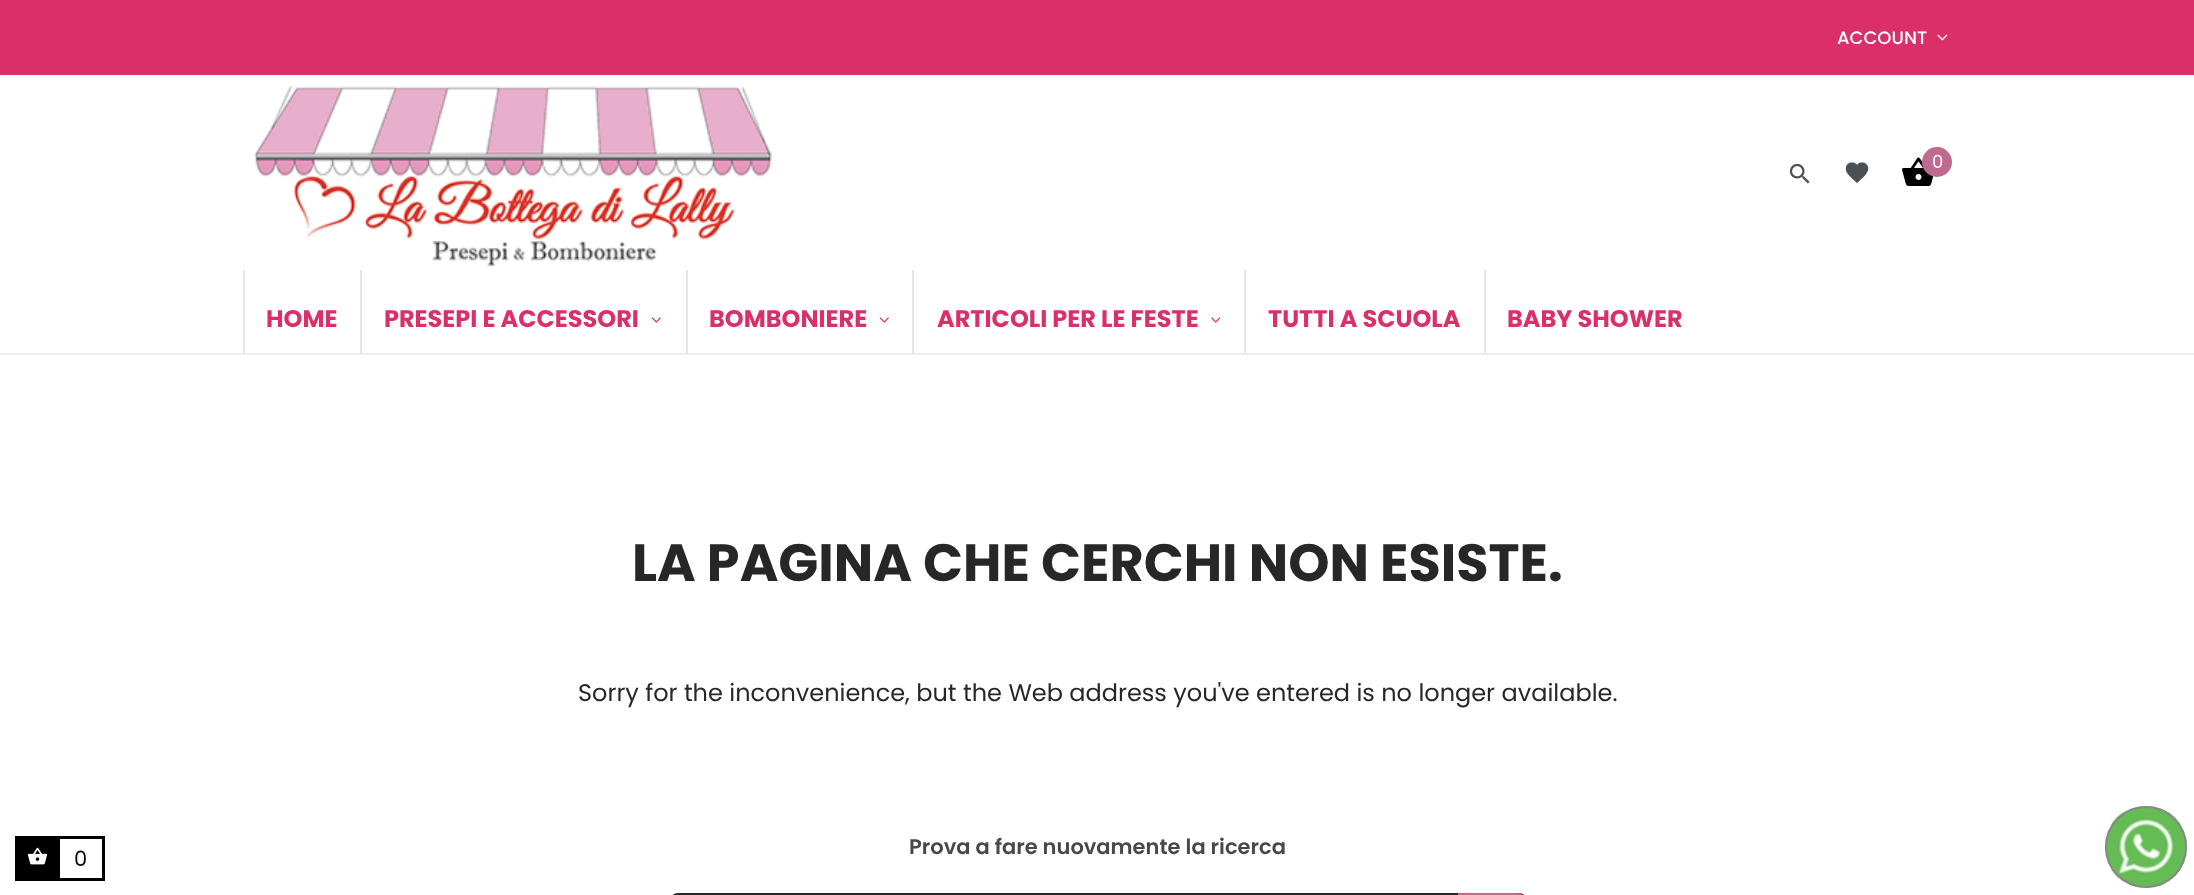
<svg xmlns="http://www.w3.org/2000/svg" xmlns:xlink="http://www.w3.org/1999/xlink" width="2194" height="895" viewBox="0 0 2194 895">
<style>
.cls-1{font:500 18px Poppins;fill:#ffffff}
.cls-2{font:18px Poppins;fill:#ffffff}
.cls-3{font:bold 24px Poppins;fill:#da2f68}
.cls-4{font:bold 52.5px Poppins;fill:#272727}
.cls-5{font:24px Poppins;fill:#272727}
.cls-6{font:600 21px Poppins;fill:#484848}
.cls-7{font:21px Poppins;fill:#000000}
</style>
<rect width="100%" height="100%" fill="#ffffff"/>
<rect fill="#da2f68" x="0" y="0" width="2194" height="75"/>
<image xlink:href="image0.png" x="1937" y="34" width="11" height="7"/>
<rect fill="#eeeeee" x="0" y="353" width="2194" height="2"/>
<image xlink:href="image1.png" x="254" y="85" width="518" height="182"/>
<image xlink:href="image2.png" x="1789" y="163" width="21" height="21"/>
<image xlink:href="image3.png" x="1845" y="162" width="24" height="21"/>
<image xlink:href="image4.png" x="1902" y="157" width="32" height="29"/>
<circle fill="#bf6a8e" cx="1937" cy="162" r="15"/>
<rect fill="#e6e6e6" x="243" y="270" width="2" height="83"/>
<rect fill="#e6e6e6" x="360" y="270" width="2" height="83"/>
<image xlink:href="image5.png" x="651" y="317" width="10" height="6"/>
<rect fill="#e6e6e6" x="686" y="270" width="2" height="83"/>
<image xlink:href="image5.png" x="879" y="317" width="10" height="6"/>
<rect fill="#e6e6e6" x="912" y="270" width="2" height="83"/>
<image xlink:href="image6.png" x="1211" y="317" width="10" height="6"/>
<rect fill="#e6e6e6" x="1244" y="270" width="2" height="83"/>
<rect fill="#e6e6e6" x="1484" y="270" width="2" height="83"/>
<rect fill="#272727" x="671" y="893" width="855" height="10" rx="8"/>
<path fill="#bf6a8e" d="M1458 893H1518C1522.5 893 1526 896.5 1526 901V895C1526 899.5 1522.5 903 1518 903H1458Z"/>
<circle fill="#65bc54" cx="2146" cy="847" r="41"/>
<image xlink:href="image7.png" x="2111" y="812" width="69" height="69"/>
<circle fill="none" stroke="#888888" stroke-width="2" cx="2146" cy="847" r="40"/>
<rect fill="#000000" x="15" y="836" width="90" height="45"/>
<image xlink:href="image8.png" x="27" y="847" width="21" height="18"/>
<rect fill="#ffffff" x="60" y="839" width="42" height="39"/>
<text class="cls-1" x="1837" y="44">ACCOUNT</text>
<text class="cls-2" x="1932" y="168">0</text>
<text class="cls-3" x="266" y="327">HOME</text>
<text class="cls-3" x="384" y="327">PRESEPI E ACCESSORI</text>
<text class="cls-3" x="709" y="327">BOMBONIERE</text>
<text class="cls-3" x="937" y="327">ARTICOLI PER LE FESTE</text>
<text class="cls-3" x="1268" y="327">TUTTI A SCUOLA</text>
<text class="cls-3" x="1507" y="327">BABY SHOWER</text>
<text class="cls-4" x="632" y="581">LA PAGINA CHE CERCHI NON ESISTE.</text>
<text class="cls-5" x="578" y="701">Sorry for the inconvenience, but the Web address you've entered is no longer available.</text>
<text class="cls-6" x="909" y="854">Prova a fare nuovamente la ricerca</text>
<text class="cls-7" x="74" y="866">0</text>
</svg>
